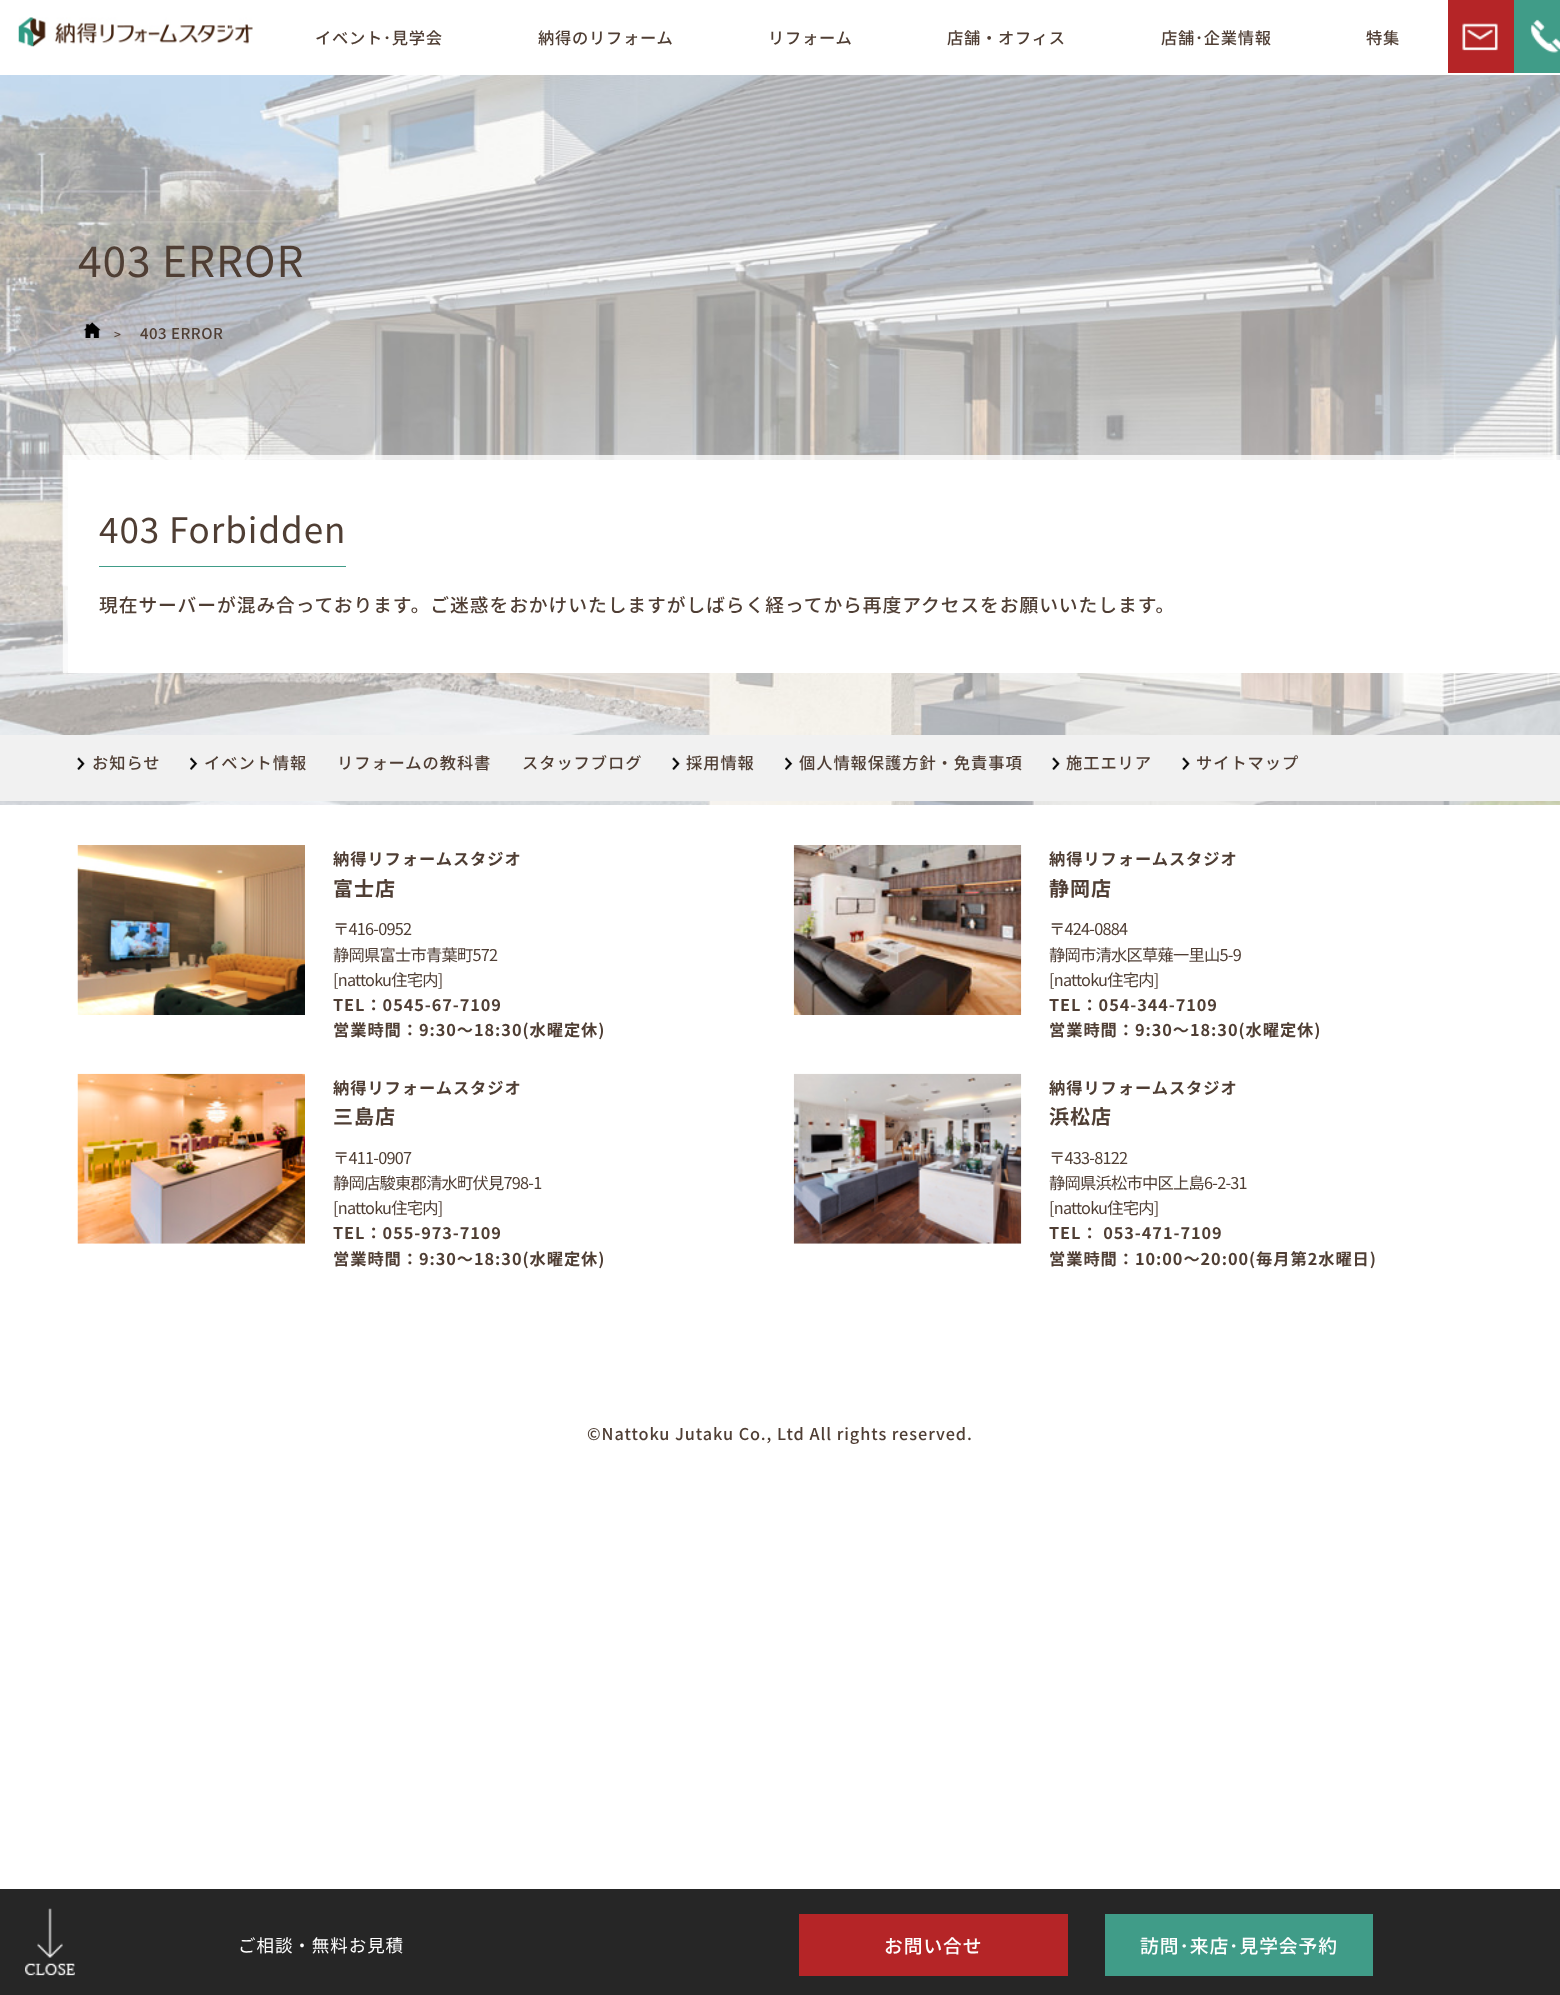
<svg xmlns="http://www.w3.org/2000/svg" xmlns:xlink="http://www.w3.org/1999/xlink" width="1560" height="1995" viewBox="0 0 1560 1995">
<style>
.cls-1{font:500 16.25px Noto Sans JP;letter-spacing:0.75px;fill:#4f3e34}
.cls-2{font:42.5px Noto Sans JP;letter-spacing:0.95px;fill:#4f3e34}
.cls-3{font:500 12px Noto Sans JP;letter-spacing:0.95px;fill:#4f3e34}
.cls-4{font:500 15px Noto Sans JP;letter-spacing:0.5px;fill:#4f3e34}
.cls-5{font:35px Noto Sans JP;letter-spacing:0.95px;fill:#4f3e34}
.cls-6{font:500 18.75px Noto Sans JP;letter-spacing:0.95px;fill:#4f3e34}
.cls-7{font:500 16.25px Noto Sans JP;letter-spacing:0.95px;fill:#4f3e34}
.cls-8{font:bold 16.25px Noto Sans JP;letter-spacing:0.95px;fill:#4f3e34}
.cls-9{font:bold 20px Noto Sans JP;letter-spacing:0.95px;fill:#4f3e34}
.cls-10{font:16.25px Noto Sans JP;letter-spacing:-0.75px;fill:#4f3e34}
.cls-11{font:17.5px Noto Sans JP;letter-spacing:0.95px;fill:#ffffff}
.cls-12{font:500 18.75px Noto Sans JP;letter-spacing:0.95px;fill:#ffffff}
</style>
<rect width="100%" height="100%" fill="#ffffff"/>
<image xlink:href="image0.png" x="18" y="17" width="235" height="30"/>
<rect fill="#b52527" x="1448" y="0" width="66" height="73"/>
<image xlink:href="image1.png" x="1462" y="23" width="36" height="28"/>
<rect fill="#409c88" x="1514" y="0" width="46" height="73"/>
<image xlink:href="image2.png" x="1530" y="19" width="30" height="34"/>
<image xlink:href="image3.png" x="0" y="75" width="1560" height="730"/>
<image xlink:href="image4.png" x="83" y="322" width="18" height="16"/>
<rect fill="#ffffff" fill-opacity="0.75" x="63" y="455" width="1497" height="218"/>
<path fill="#ffffff" fill-opacity="0.15" d="M62 455H1560V460H68Z"/>
<path fill="#ffffff" fill-opacity="0.15" d="M62 672V455L68 460V672Z"/>
<rect fill="#ffffff" x="68" y="460" width="1492" height="213"/>
<rect fill="#409c88" x="99" y="566" width="247" height="1"/>
<rect fill="#f1f1f1" x="0" y="735" width="1560" height="66"/>
<image xlink:href="image5.png" x="77" y="757" width="8" height="13"/>
<image xlink:href="image6.png" x="190" y="757" width="8" height="13"/>
<image xlink:href="image7.png" x="672" y="757" width="8" height="13"/>
<image xlink:href="image6.png" x="785" y="757" width="8" height="13"/>
<image xlink:href="image7.png" x="1052" y="757" width="8" height="13"/>
<image xlink:href="image5.png" x="1182" y="757" width="8" height="13"/>
<image xlink:href="image8.png" x="77" y="845" width="228" height="170"/>
<image xlink:href="image9.png" x="793" y="845" width="229" height="170"/>
<image xlink:href="image10.png" x="77" y="1073" width="228" height="171"/>
<image xlink:href="image11.png" x="793" y="1073" width="229" height="171"/>
<rect fill="#262626" x="0" y="1889" width="1560" height="106"/>
<image xlink:href="image12.png" x="25" y="1908" width="50" height="68"/>
<rect fill="#b52527" x="799" y="1914" width="269" height="62"/>
<rect fill="#409c88" x="1105" y="1914" width="268" height="62"/>
<text class="cls-1" x="315" y="44">イベント･見学会</text>
<text class="cls-1" x="538" y="44">納得のリフォーム</text>
<text class="cls-1" x="768" y="44">リフォーム</text>
<text class="cls-1" x="947" y="44">店舗・オフィス</text>
<text class="cls-1" x="1161" y="44">店舗･企業情報</text>
<text class="cls-1" x="1366" y="44">特集</text>
<text class="cls-2" x="78" y="277">403 ERROR</text>
<text class="cls-3" x="114" y="339">&gt;</text>
<text class="cls-4" x="140" y="339">403 ERROR</text>
<text class="cls-5" x="99" y="543">403 Forbidden</text>
<text class="cls-6" x="99" y="612">現在サーバーが混み合っております。ご迷惑をおかけいたしますがしばらく経ってから再度アクセスをお願いいたします。</text>
<text class="cls-7" x="92" y="769">お知らせ</text>
<text class="cls-7" x="204" y="769">イベント情報</text>
<text class="cls-7" x="337" y="769">リフォームの教科書</text>
<text class="cls-7" x="522" y="769">スタッフブログ</text>
<text class="cls-7" x="686" y="769">採用情報</text>
<text class="cls-7" x="799" y="769">個人情報保護方針・免責事項</text>
<text class="cls-7" x="1066" y="769">施工エリア</text>
<text class="cls-7" x="1196" y="769">サイトマップ</text>
<text class="cls-8" x="333" y="865">納得リフォームスタジオ</text>
<text class="cls-9" x="333" y="896">富士店</text>
<text class="cls-10"><tspan x="333" y="935">〒416-0952</tspan><tspan x="333" y="961">静岡県富士市青葉町572</tspan><tspan x="333" y="986">[nattoku住宅内]</tspan></text>
<text class="cls-8"><tspan x="333" y="1011">TEL：0545-67-7109</tspan><tspan x="333" y="1036">営業時間：9:30～18:30(水曜定休)</tspan></text>
<text class="cls-8" x="1049" y="865">納得リフォームスタジオ</text>
<text class="cls-9" x="1049" y="896">静岡店</text>
<text class="cls-10"><tspan x="1049" y="935">〒424-0884</tspan><tspan x="1049" y="961">静岡市清水区草薙一里山5-9</tspan><tspan x="1049" y="986">[nattoku住宅内]</tspan></text>
<text class="cls-8"><tspan x="1049" y="1011">TEL：054-344-7109</tspan><tspan x="1049" y="1036">営業時間：9:30～18:30(水曜定休)</tspan></text>
<text class="cls-8" x="333" y="1094">納得リフォームスタジオ</text>
<text class="cls-9" x="333" y="1124">三島店</text>
<text class="cls-10"><tspan x="333" y="1164">〒411-0907</tspan><tspan x="333" y="1189">静岡店駿東郡清水町伏見798-1</tspan><tspan x="333" y="1214">[nattoku住宅内]</tspan></text>
<text class="cls-8"><tspan x="333" y="1239">TEL：055-973-7109</tspan><tspan x="333" y="1265">営業時間：9:30～18:30(水曜定休)</tspan></text>
<text class="cls-8" x="1049" y="1094">納得リフォームスタジオ</text>
<text class="cls-9" x="1049" y="1124">浜松店</text>
<text class="cls-10"><tspan x="1049" y="1164">〒433-8122</tspan><tspan x="1049" y="1189">静岡県浜松市中区上島6-2-31</tspan><tspan x="1049" y="1214">[nattoku住宅内]</tspan></text>
<text class="cls-8"><tspan x="1049" y="1239">TEL： 053-471-7109</tspan><tspan x="1049" y="1265">営業時間：10:00～20:00(毎月第2水曜日)</tspan></text>
<text class="cls-7" x="587" y="1440">©Nattoku Jutaku Co., Ltd All rights reserved.</text>
<text class="cls-11" x="238" y="1952">ご相談・無料お見積</text>
<text class="cls-12" x="884" y="1953">お問い合せ</text>
<text class="cls-12" x="1140" y="1953">訪問･来店･見学会予約</text>
</svg>
